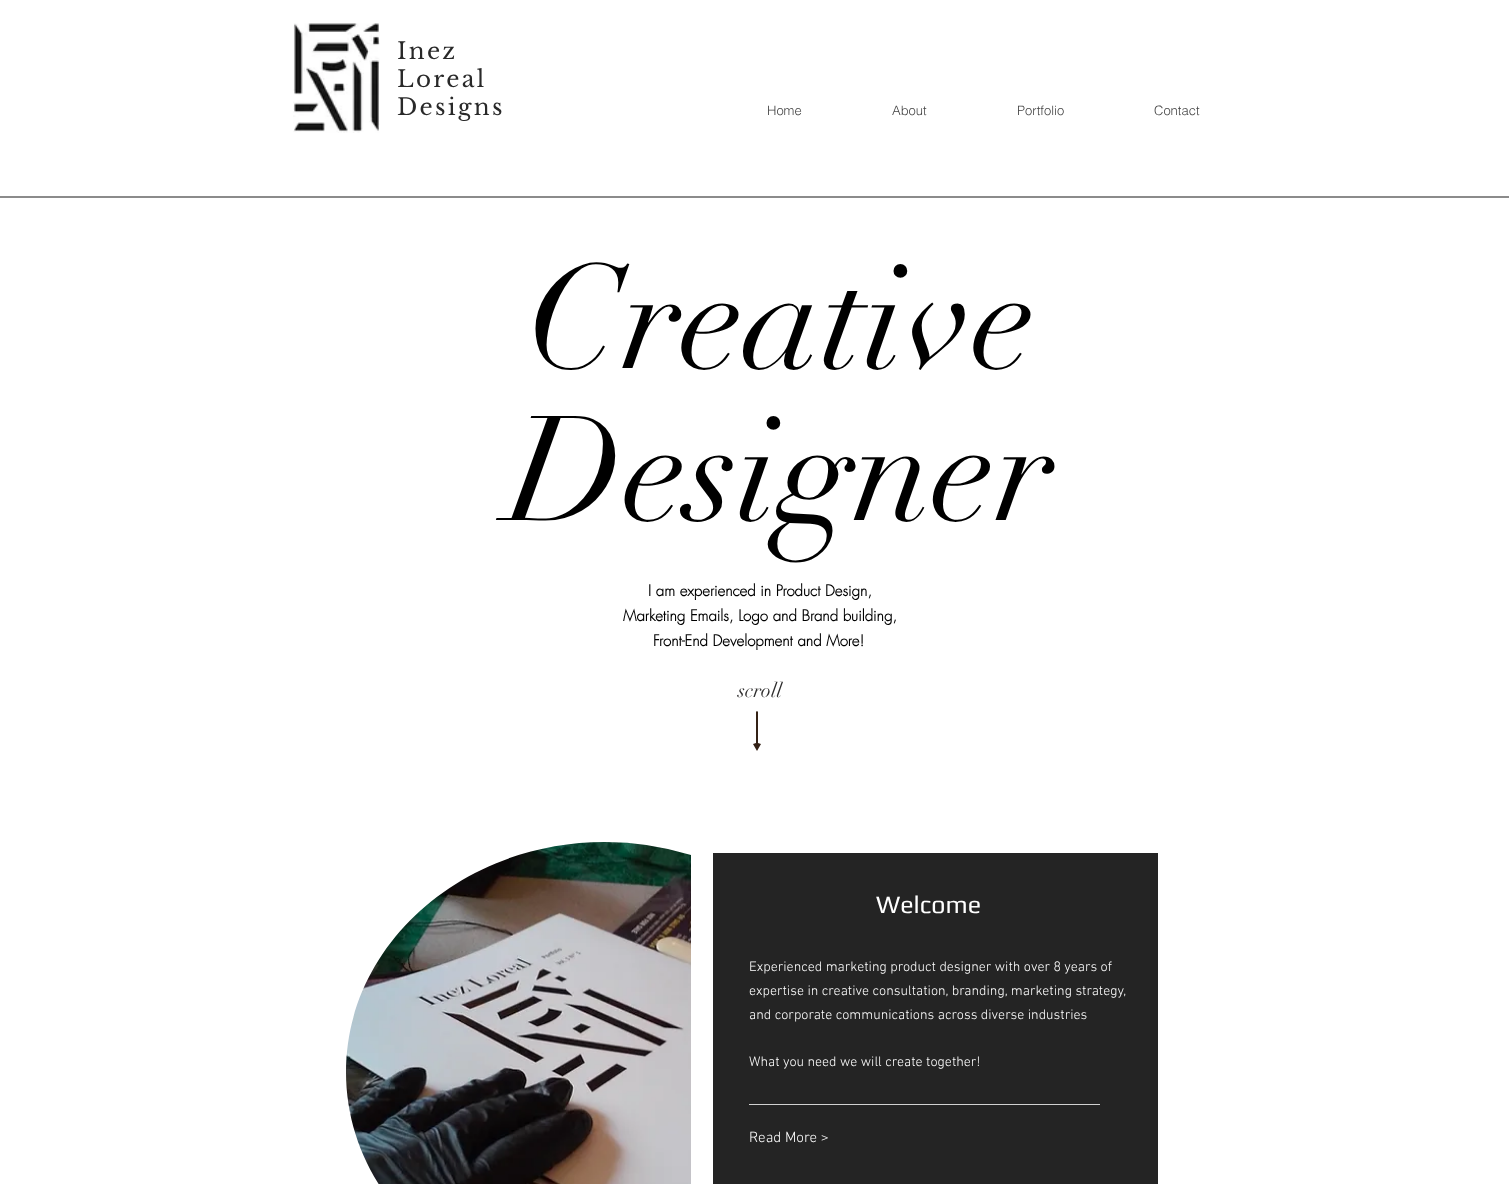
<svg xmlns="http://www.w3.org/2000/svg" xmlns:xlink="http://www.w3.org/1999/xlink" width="1509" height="1184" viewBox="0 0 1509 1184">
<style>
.cls-1{font:23px Libre Baskerville;letter-spacing:2.25px;fill:#292929}
.cls-2{font:300 13px helvetica;fill:#444444}
.cls-3{font:146px didot;fill:#000000}
.cls-4{font:bold 15px futura;fill:#000000}
.cls-5{font:20px didot;fill:#2f2e2e}
.cls-6{font:25px Play;fill:#ffffff}
.cls-7{font:300 14px 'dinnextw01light';fill:#ffffff}
.cls-8{font:300 15px 'dinnextw01light';fill:#ffffff}
</style>
<rect width="100%" height="100%" fill="#ffffff"/>
<image xlink:href="image0.png" x="293" y="23" width="87" height="110"/>
<rect fill="#8b8b8b" x="0" y="196" width="1509" height="2"/>
<path fill="#342216" d="M756 712V743L753 744L757 751L761 744L758 743V712C758 711 756 711 756 712Z"/>
<image xlink:href="image1.png" x="346" y="842" width="345" height="342"/>
<rect fill="#242424" x="713" y="853" width="445" height="331"/>
<rect fill="#d1d1d1" x="749" y="1104" width="351" height="1"/>
<text class="cls-1"><tspan x="397" y="59">Inez</tspan><tspan x="397" y="87">Loreal</tspan><tspan x="397" y="115">Designs</tspan></text>
<text class="cls-2" x="767" y="115">Home</text>
<text class="cls-2" x="892" y="115">About</text>
<text class="cls-2" x="1017" y="115">Portfolio</text>
<text class="cls-2" x="1154" y="115">Contact</text>
<text class="cls-3" x="527" y="368">Creative</text>
<text class="cls-3" x="508" y="520">Designer</text>
<text class="cls-4" x="648" y="596">I am experienced in Product Design,</text>
<text class="cls-4" x="623" y="621">Marketing Emails, Logo and Brand building,</text>
<text class="cls-4" x="653" y="646">Front-End Development and More!</text>
<text class="cls-5" x="738" y="697">scroll</text>
<text class="cls-6" x="876" y="913">Welcome</text>
<text class="cls-7"><tspan x="749" y="971">Experienced marketing product designer with over 8 years of</tspan><tspan x="749" y="995">expertise in creative consultation, branding, marketing strategy,</tspan><tspan x="749" y="1019">and corporate communications across diverse industries</tspan></text>
<text class="cls-7" x="749" y="1066">What you need we will create together!</text>
<text class="cls-8" x="749" y="1142">Read More &gt;</text>
</svg>
